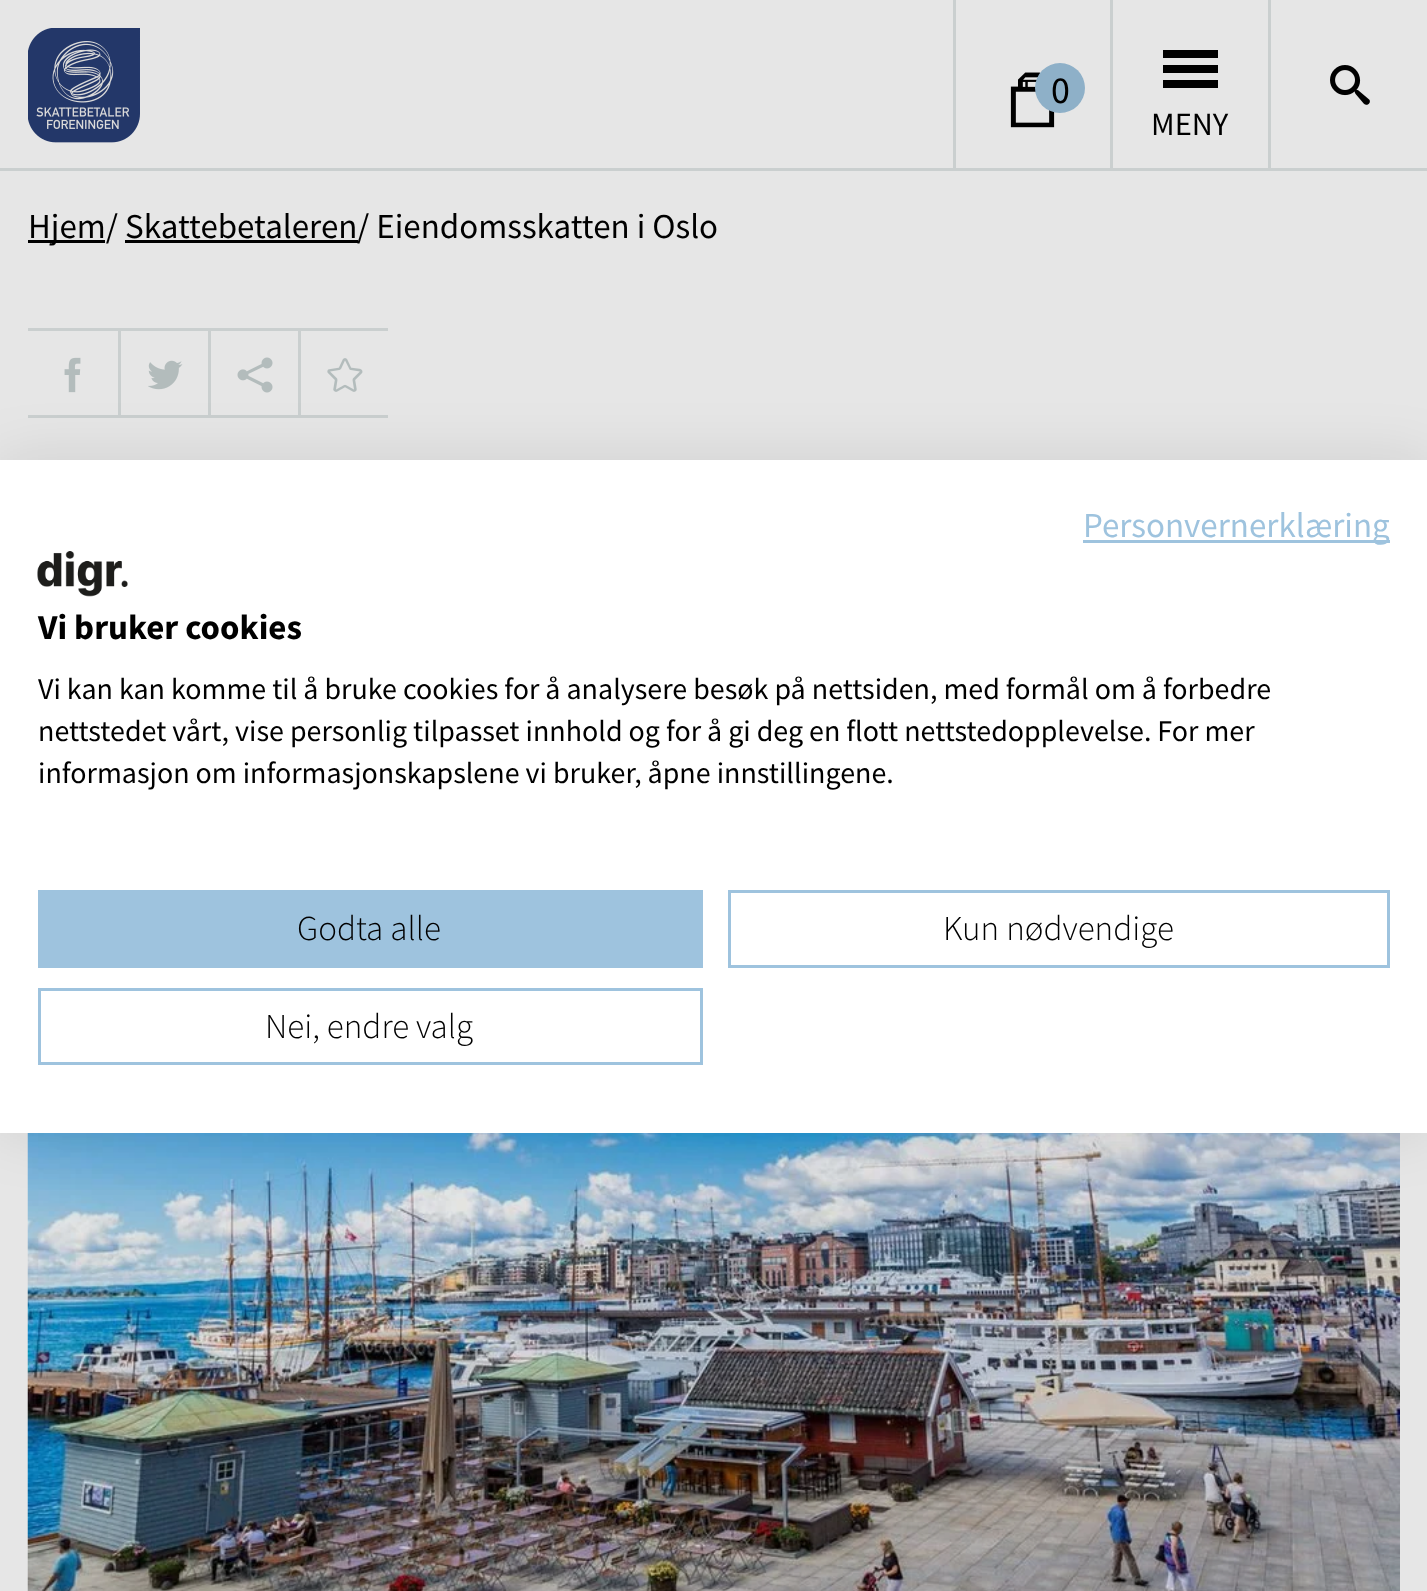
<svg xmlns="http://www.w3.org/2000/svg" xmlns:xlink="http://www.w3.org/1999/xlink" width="1427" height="1591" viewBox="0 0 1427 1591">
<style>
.cls-1{font:38px Source Sans Pro;fill:#000000}
.cls-2{font:32.5px Source Sans Pro;fill:#000000}
.cls-3{font:35px Source Sans Pro;fill:#000000}
.cls-4{font:35px Source Sans Pro;fill:#9ec3de}
.cls-5{font:bold 35px Source Sans Pro;fill:#000000}
.cls-6{font:30px Source Sans Pro;fill:#000000}
.cls-7{font:300 35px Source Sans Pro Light;fill:#000000}
</style>
<rect width="100%" height="100%" fill="#e6e6e6"/>
<rect fill="#cacfcf" x="0" y="168" width="1427" height="3"/>
<image xlink:href="image0.png" x="28" y="28" width="112" height="115"/>
<rect fill="#cacfcf" x="953" y="0" width="3" height="170"/>
<rect fill="#cacfcf" x="1110" y="0" width="3" height="170"/>
<image xlink:href="image1.png" x="1010" y="72" width="45" height="56"/>
<circle fill="#8eb0c8" cx="1060" cy="88" r="25"/>
<image xlink:href="image2.png" x="1330" y="65" width="40" height="40"/>
<rect fill="#cacfcf" x="1268" y="0" width="3" height="170"/>
<rect fill="#000000" x="1163" y="65" width="55" height="8"/>
<rect fill="#000000" x="1163" y="50" width="55" height="8"/>
<rect fill="#000000" x="1163" y="80" width="55" height="8"/>
<rect fill="#000000" x="28" y="240" width="77" height="3"/>
<rect fill="#000000" x="125" y="240" width="233" height="3"/>
<rect fill="#cacfcf" x="28" y="328" width="360" height="3"/>
<rect fill="#cacfcf" x="28" y="415" width="360" height="3"/>
<image xlink:href="image3.png" x="64" y="357" width="17" height="36"/>
<rect fill="#cacfcf" x="118" y="328" width="3" height="90"/>
<image xlink:href="image4.png" x="148" y="360" width="35" height="30"/>
<rect fill="#cacfcf" x="208" y="328" width="3" height="90"/>
<image xlink:href="image5.png" x="237" y="357" width="36" height="36"/>
<rect fill="#cacfcf" x="298" y="328" width="3" height="90"/>
<image xlink:href="image6.png" x="327" y="358" width="36" height="34"/>
<image xlink:href="image7.png" x="27" y="1133" width="1373" height="458"/>
<rect fill="#000000" fill-opacity="0.1" filter="blur(30px)" x="0" y="460" width="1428" height="673"/>
<rect fill="#ffffff" x="0" y="460" width="1427" height="673"/>
<rect fill="#9ec3de" x="1083" y="540" width="307" height="3"/>
<image xlink:href="image8.png" x="37" y="551" width="91" height="46"/>
<rect fill="#9ec3de" x="38" y="890" width="665" height="78"/>
<rect fill="none" stroke="#9ec3de" stroke-width="3" x="729.5" y="891.5" width="659" height="75"/>
<rect fill="none" stroke="#9ec3de" stroke-width="3" x="39.5" y="989.5" width="662" height="74"/>
<text class="cls-1" x="1051" y="103">0</text>
<text class="cls-2" x="1151" y="135">MENY</text>
<text class="cls-3" x="28" y="238">Hjem/ Skattebetaleren</text>
<text class="cls-3" x="357" y="238">/ Eiendomsskatten i Oslo</text>
<text class="cls-4" x="1083" y="537">Personvernerklæring</text>
<text class="cls-5" x="38" y="639">Vi bruker cookies</text>
<text class="cls-6"><tspan x="38" y="699">Vi kan kan komme til å bruke cookies for å analysere besøk på nettsiden, med formål om å forbedre</tspan><tspan x="38" y="741">nettstedet vårt, vise personlig tilpasset innhold og for å gi deg en flott nettstedopplevelse. For mer</tspan><tspan x="38" y="783">informasjon om informasjonskapslene vi bruker, åpne innstillingene.</tspan></text>
<text class="cls-7" x="297" y="940">Godta alle</text>
<text class="cls-7" x="943" y="940">Kun nødvendige</text>
<text class="cls-7" x="265" y="1038">Nei, endre valg</text>
</svg>
